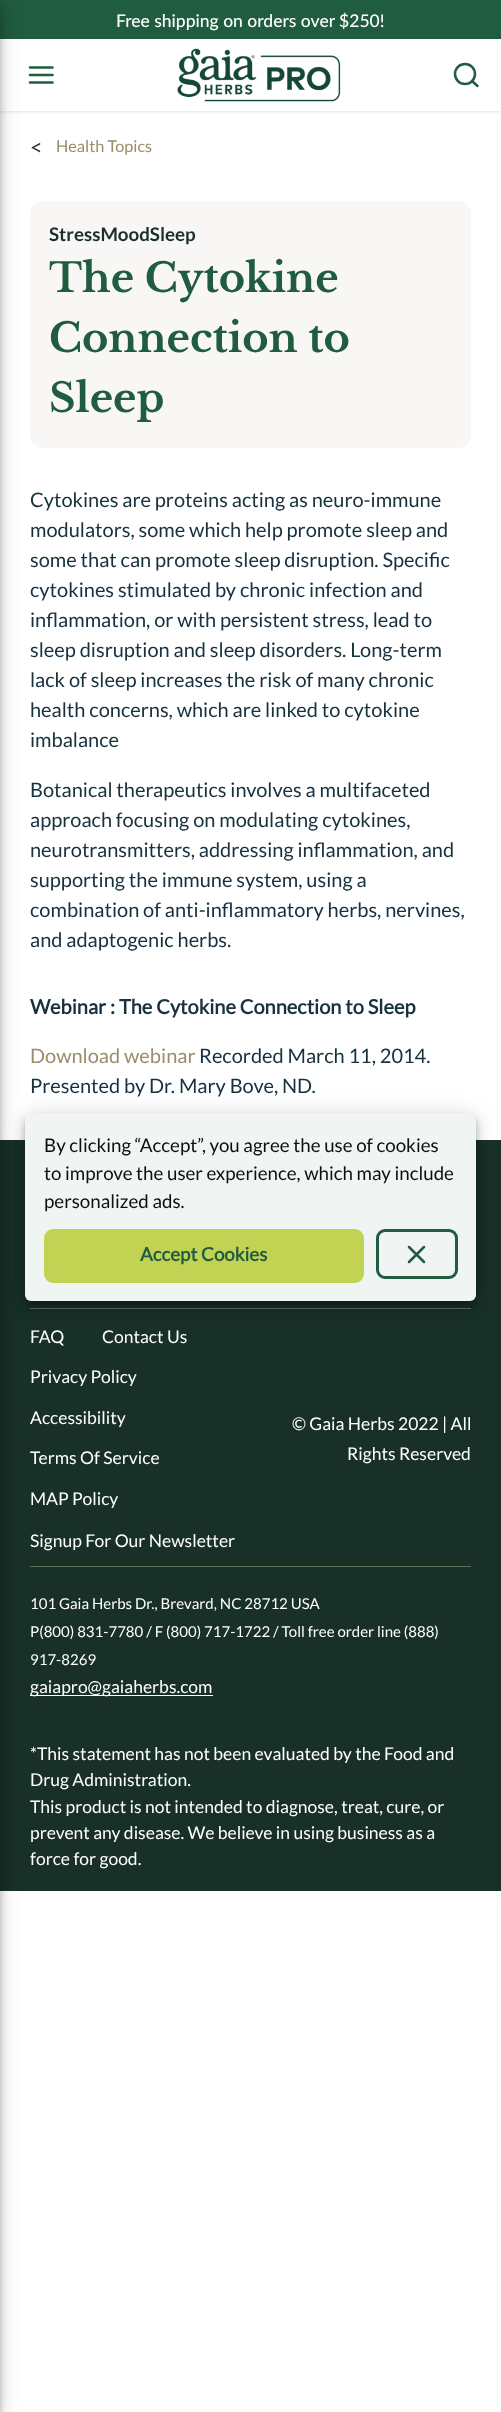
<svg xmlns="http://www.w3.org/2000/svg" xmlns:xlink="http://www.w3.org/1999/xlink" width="501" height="2412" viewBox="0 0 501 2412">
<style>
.cls-1{font:500 17.5px Lato;fill:#ffffff}
.cls-2{font:22px Lato;fill:#333333}
.cls-3{font:16.25px Lato;fill:#998d6b}
.cls-4{font:bold 18.75px Lato;fill:#183028}
.cls-5{font:bold 40px Libre Baskerville;fill:#205c40}
.cls-6{font:20px Lato;fill:#17313e}
.cls-7{font:bold 20px 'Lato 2';fill:#17313e}
.cls-8{font:20px Lato;fill:#998d6b}
.cls-9{font:17.5px Lato;fill:#ffffff}
.cls-10{font:15px Lato;fill:#ffffff}
.cls-11{font:18.75px Lato;fill:#0f0f0f}
.cls-12{font:bold 18.75px 'Lato 2';fill:#205c40}
</style>
<defs>
<clipPath id="clip1"><rect x="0" y="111" width="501" height="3"/></clipPath>
</defs>
<rect width="100%" height="100%" fill="#ffffff"/>
<g clip-path="url(#clip1)">
<rect fill="#000000" fill-opacity="0.16" filter="blur(2.5px)" x="0" y="0" width="501" height="111"/>
</g>
<rect fill="#205c40" x="0" y="0" width="501" height="39"/>
<path fill="none" stroke="#205c40" stroke-width="2.5" stroke-linecap="round" stroke-linejoin="round" d="M30 75H52.5M30 67.5H52.5M30 82.5H52.5"/>
<rect fill="#f9f7f5" x="30" y="201" width="441" height="247" rx="13"/>
<rect fill="#183028" x="0" y="1140" width="501" height="751"/>
<rect fill="#5e725c" x="30" y="1308" width="441" height="1"/>
<rect fill="#5e725c" x="30" y="1566" width="441" height="1"/>
<rect fill="#ffffff" x="30" y="1695" width="183" height="1"/>
<rect fill="#000000" fill-opacity="0.12" filter="blur(11px)" x="25" y="1114" width="451" height="189" rx="6"/>
<rect fill="#000000" fill-opacity="0.14" filter="blur(6px)" x="25" y="1120" width="451" height="189" rx="6"/>
<rect fill="#000000" fill-opacity="0.2" filter="blur(3px)" x="26" y="1118" width="449" height="186" rx="5"/>
<rect fill="#f0f4f3" x="25" y="1113" width="451" height="188" rx="6"/>
<rect fill="#000000" fill-opacity="0.12" filter="blur(11px)" x="-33" y="1" width="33" height="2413"/>
<rect fill="#000000" fill-opacity="0.14" filter="blur(6px)" x="-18" y="8" width="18" height="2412"/>
<rect fill="#000000" fill-opacity="0.2" filter="blur(3px)" x="-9" y="5" width="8" height="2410"/>
<image xlink:href="image0.png" x="177" y="48" width="164" height="54"/>
<circle fill="none" stroke="#205c40" stroke-width="2.5" cx="465" cy="74" r="10"/>
<path fill="none" stroke="#205c40" stroke-width="2.5" stroke-linecap="round" stroke-linejoin="round" d="M477.5 86L472 81"/>
<rect fill="#c2d354" stroke="#c2d354" stroke-width="3" x="45.5" y="1230.5" width="317" height="51" rx="7.5"/>
<rect fill="none" stroke="#205c40" stroke-width="3" x="377.5" y="1230.5" width="79" height="47" rx="7.5"/>
<path fill="none" stroke="#205c40" stroke-width="2.5" stroke-linecap="round" stroke-linejoin="round" d="M424 1247L409 1262M409 1247L424 1262"/>
<text class="cls-1" x="116" y="27">Free shipping on orders over $250!</text>
<text class="cls-2" x="30" y="155">&lt;</text>
<text class="cls-3" x="56" y="152">Health Topics</text>
<text class="cls-4" x="49" y="241">StressMoodSleep</text>
<text class="cls-5"><tspan x="49" y="292">The Cytokine</tspan><tspan x="49" y="352">Connection to</tspan><tspan x="49" y="412">Sleep</tspan></text>
<text class="cls-6"><tspan x="30" y="507">Cytokines are proteins acting as neuro-immune</tspan><tspan x="30" y="537">modulators, some which help promote sleep and</tspan><tspan x="30" y="567">some that can promote sleep disruption. Specific</tspan><tspan x="30" y="597">cytokines stimulated by chronic infection and</tspan><tspan x="30" y="627">inflammation, or with persistent stress, lead to</tspan><tspan x="30" y="657">sleep disruption and sleep disorders. Long-term</tspan><tspan x="30" y="687">lack of sleep increases the risk of many chronic</tspan><tspan x="30" y="717">health concerns, which are linked to cytokine</tspan><tspan x="30" y="747">imbalance</tspan></text>
<text class="cls-6"><tspan x="30" y="797">Botanical therapeutics involves a multifaceted</tspan><tspan x="30" y="827">approach focusing on modulating cytokines,</tspan><tspan x="30" y="857">neurotransmitters, addressing inflammation, and</tspan><tspan x="30" y="887">supporting the immune system, using a</tspan><tspan x="30" y="917">combination of anti-inflammatory herbs, nervines,</tspan><tspan x="30" y="947">and adaptogenic herbs.</tspan></text>
<text class="cls-7" x="30" y="1014">Webinar : The Cytokine Connection to Sleep</text>
<text class="cls-8" x="30" y="1063">Download webinar</text>
<text class="cls-6" x="199" y="1063">Recorded March 11, 2014.</text>
<text class="cls-6" x="30" y="1093">Presented by Dr. Mary Bove, ND.</text>
<text class="cls-9" x="30" y="1343">FAQ</text>
<text class="cls-9" x="102" y="1343">Contact Us</text>
<text class="cls-9" x="30" y="1383">Privacy Policy</text>
<text class="cls-9" x="30" y="1424">Accessibility</text>
<text class="cls-9" x="30" y="1464">Terms Of Service</text>
<text class="cls-9" x="30" y="1505">MAP Policy</text>
<text class="cls-9" x="30" y="1547">Signup For Our Newsletter</text>
<text class="cls-9" x="292" y="1430">© Gaia Herbs 2022 | All</text>
<text class="cls-9" x="347" y="1460">Rights Reserved</text>
<text class="cls-10"><tspan x="30" y="1609">101 Gaia Herbs Dr., Brevard, NC 28712 USA</tspan><tspan x="30" y="1637">P(800) 831-7780 / F (800) 717-1722 / Toll free order line (888)</tspan><tspan x="30" y="1665">917-8269</tspan></text>
<text class="cls-9" x="30" y="1693">gaiapro@gaiaherbs.com</text>
<text class="cls-9"><tspan x="30" y="1760">*This statement has not been evaluated by the Food and</tspan><tspan x="30" y="1786">Drug Administration.</tspan><tspan x="30" y="1813">This product is not intended to diagnose, treat, cure, or</tspan><tspan x="30" y="1839">prevent any disease. We believe in using business as a</tspan><tspan x="30" y="1865">force for good.</tspan></text>
<text class="cls-11"><tspan x="44" y="1152">By clicking “Accept”, you agree the use of cookies</tspan><tspan x="44" y="1180">to improve the user experience, which may include</tspan><tspan x="44" y="1208">personalized ads.</tspan></text>
<text class="cls-12" x="140" y="1261">Accept Cookies</text>
</svg>
